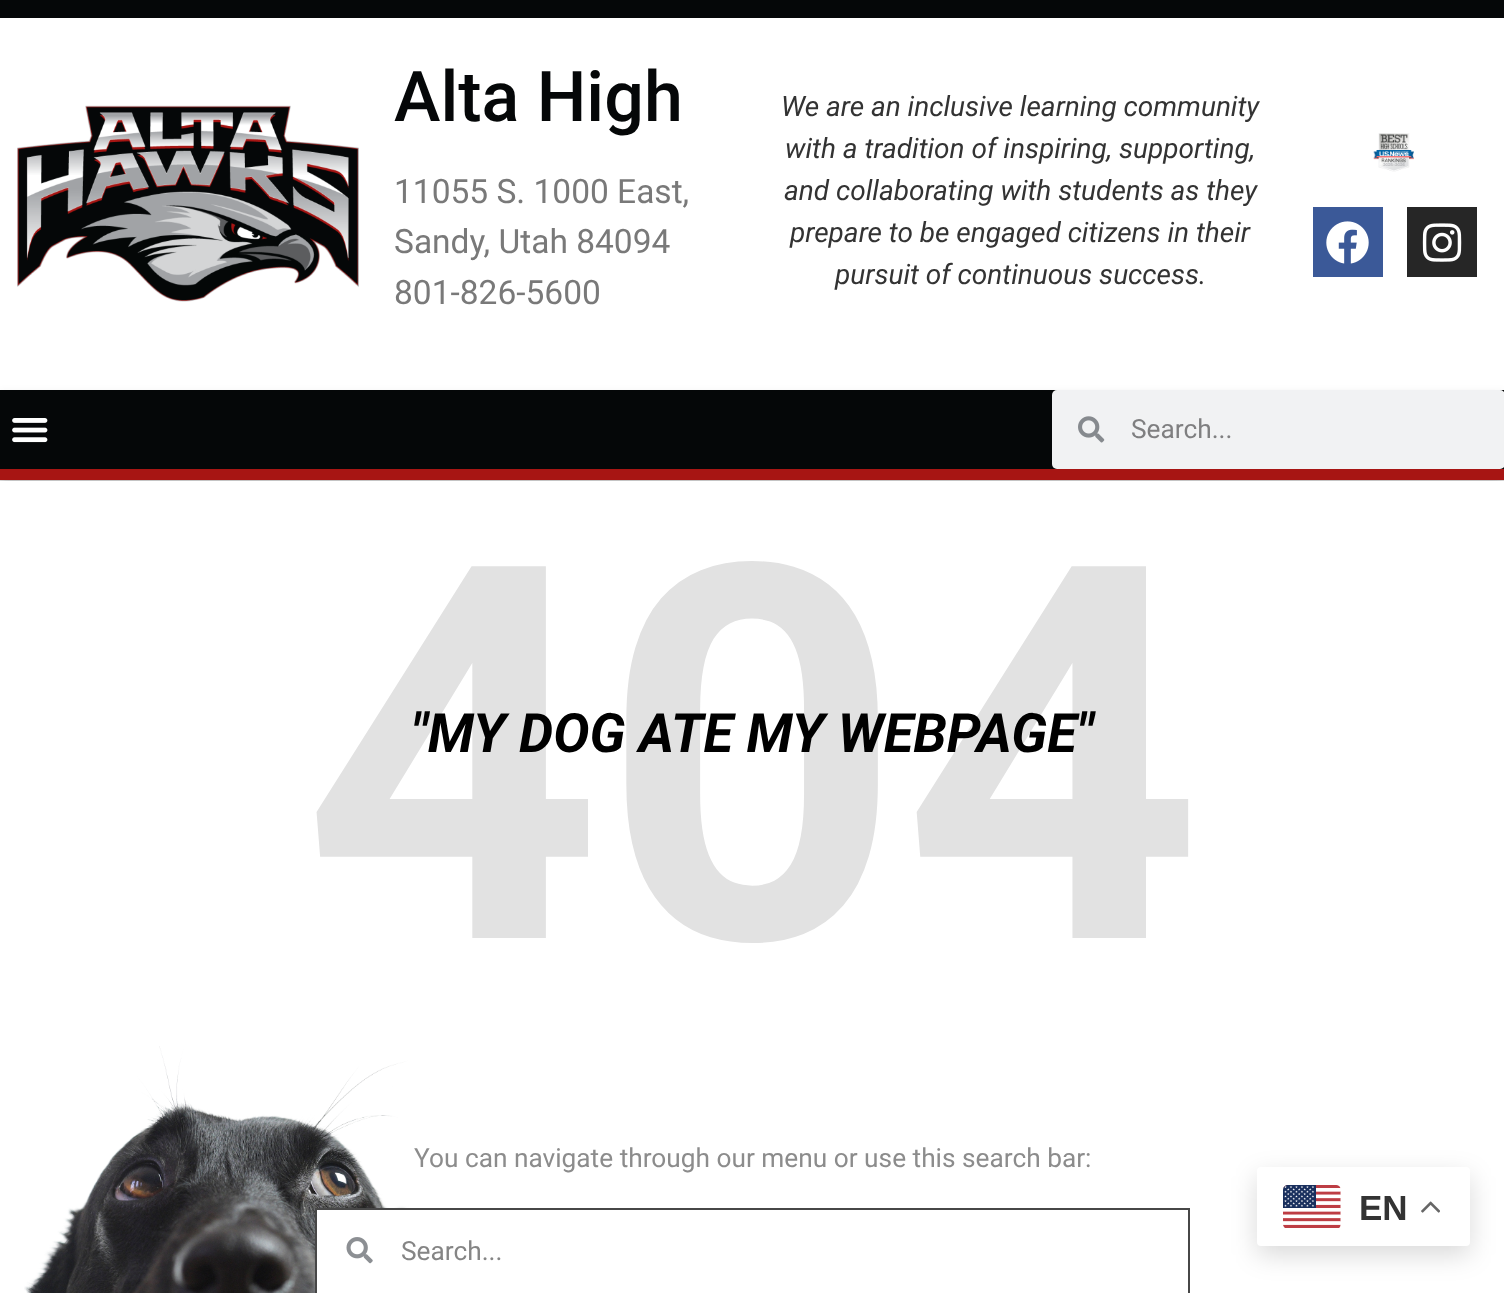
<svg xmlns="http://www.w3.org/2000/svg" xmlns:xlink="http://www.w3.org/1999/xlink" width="1504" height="1293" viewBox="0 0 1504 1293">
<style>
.cls-1{font:500 70px Roboto;fill:#050708}
.cls-2{font:33.5px Roboto;fill:#797979}
.cls-3{font:italic 28px Roboto;fill:#333333}
.cls-4{font:26.25px Roboto;fill:#7f7f80}
.cls-5{font:bold 523px Roboto;fill:#e2e2e2}
.cls-6{font:italic bold 54.25px Roboto;fill:#000000}
.cls-7{font:26.25px Roboto;fill:#8c8c8c}
.cls-8{font:26.25px Roboto;fill:#858585}
.cls-9{font:bold 35px Liberation Sans;fill:#333333}
</style>
<rect width="100%" height="100%" fill="#eeeeee"/>
<rect fill="#ffffff" x="0" y="18" width="1504" height="372"/>
<rect fill="#050708" x="0" y="0" width="1504" height="18"/>
<image xlink:href="image0.png" x="17" y="105" width="342" height="197"/>
<image xlink:href="image1.png" x="1373" y="133" width="41" height="39"/>
<rect fill="#3b5998" x="1313" y="207" width="70" height="70"/>
<image xlink:href="image2.png" x="1326" y="221" width="43" height="43"/>
<rect fill="#262626" x="1407" y="207" width="70" height="70"/>
<image xlink:href="image3.png" x="1422" y="223" width="40" height="39"/>
<rect fill="#000000" fill-opacity="0.2" filter="blur(6px)" x="0" y="397" width="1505" height="90"/>
<rect fill="#050708" x="0" y="390" width="1504" height="79"/>
<rect fill="#a71513" x="0" y="469" width="1504" height="11"/>
<image xlink:href="image4.png" x="12" y="418" width="36" height="25"/>
<rect fill="#f1f2f3" x="1052" y="390" width="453" height="79" rx="5"/>
<image xlink:href="image5.png" x="1078" y="416" width="27" height="27"/>
<rect fill="#ffffff" x="0" y="481" width="1504" height="812"/>
<image xlink:href="image6.png" x="24" y="1046" width="406" height="247"/>
<rect fill="#ffffff" x="317" y="1210" width="113" height="83"/>
<rect fill="none" stroke="#474747" stroke-width="2" x="316" y="1209" width="873" height="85"/>
<image xlink:href="image7.png" x="346" y="1237" width="27" height="27"/>
<rect fill="#000000" fill-opacity="0.15" filter="blur(13px)" x="1257" y="1176" width="213" height="79" rx="4"/>
<rect fill="#ffffff" x="1257" y="1167" width="213" height="79" rx="4"/>
<image xlink:href="image8.png" x="1283" y="1185" width="58" height="43"/>
<image xlink:href="image9.png" x="1421" y="1201" width="19" height="12"/>
<text class="cls-1" x="394" y="121">Alta High</text>
<text class="cls-2"><tspan x="394" y="203">11055 S. 1000 East,</tspan><tspan x="394" y="253">Sandy, Utah 84094</tspan><tspan x="394" y="304">801-826-5600</tspan></text>
<text class="cls-3" x="781" y="116">We are an inclusive learning community</text>
<text class="cls-3" x="785" y="158">with a tradition of inspiring, supporting,</text>
<text class="cls-3" x="784" y="200">and collaborating with students as they</text>
<text class="cls-3" x="790" y="242">prepare to be engaged citizens in their</text>
<text class="cls-3" x="835" y="284">pursuit of continuous success.</text>
<text class="cls-4" x="1131" y="438">Search...</text>
<text class="cls-5" x="302" y="938">404</text>
<text class="cls-6" x="411" y="752">"MY DOG ATE MY WEBPAGE"</text>
<text class="cls-7" x="414" y="1167">You can navigate through our menu or use this search bar:</text>
<text class="cls-8" x="401" y="1260">Search...</text>
<text class="cls-9" x="1359" y="1220">EN</text>
</svg>
